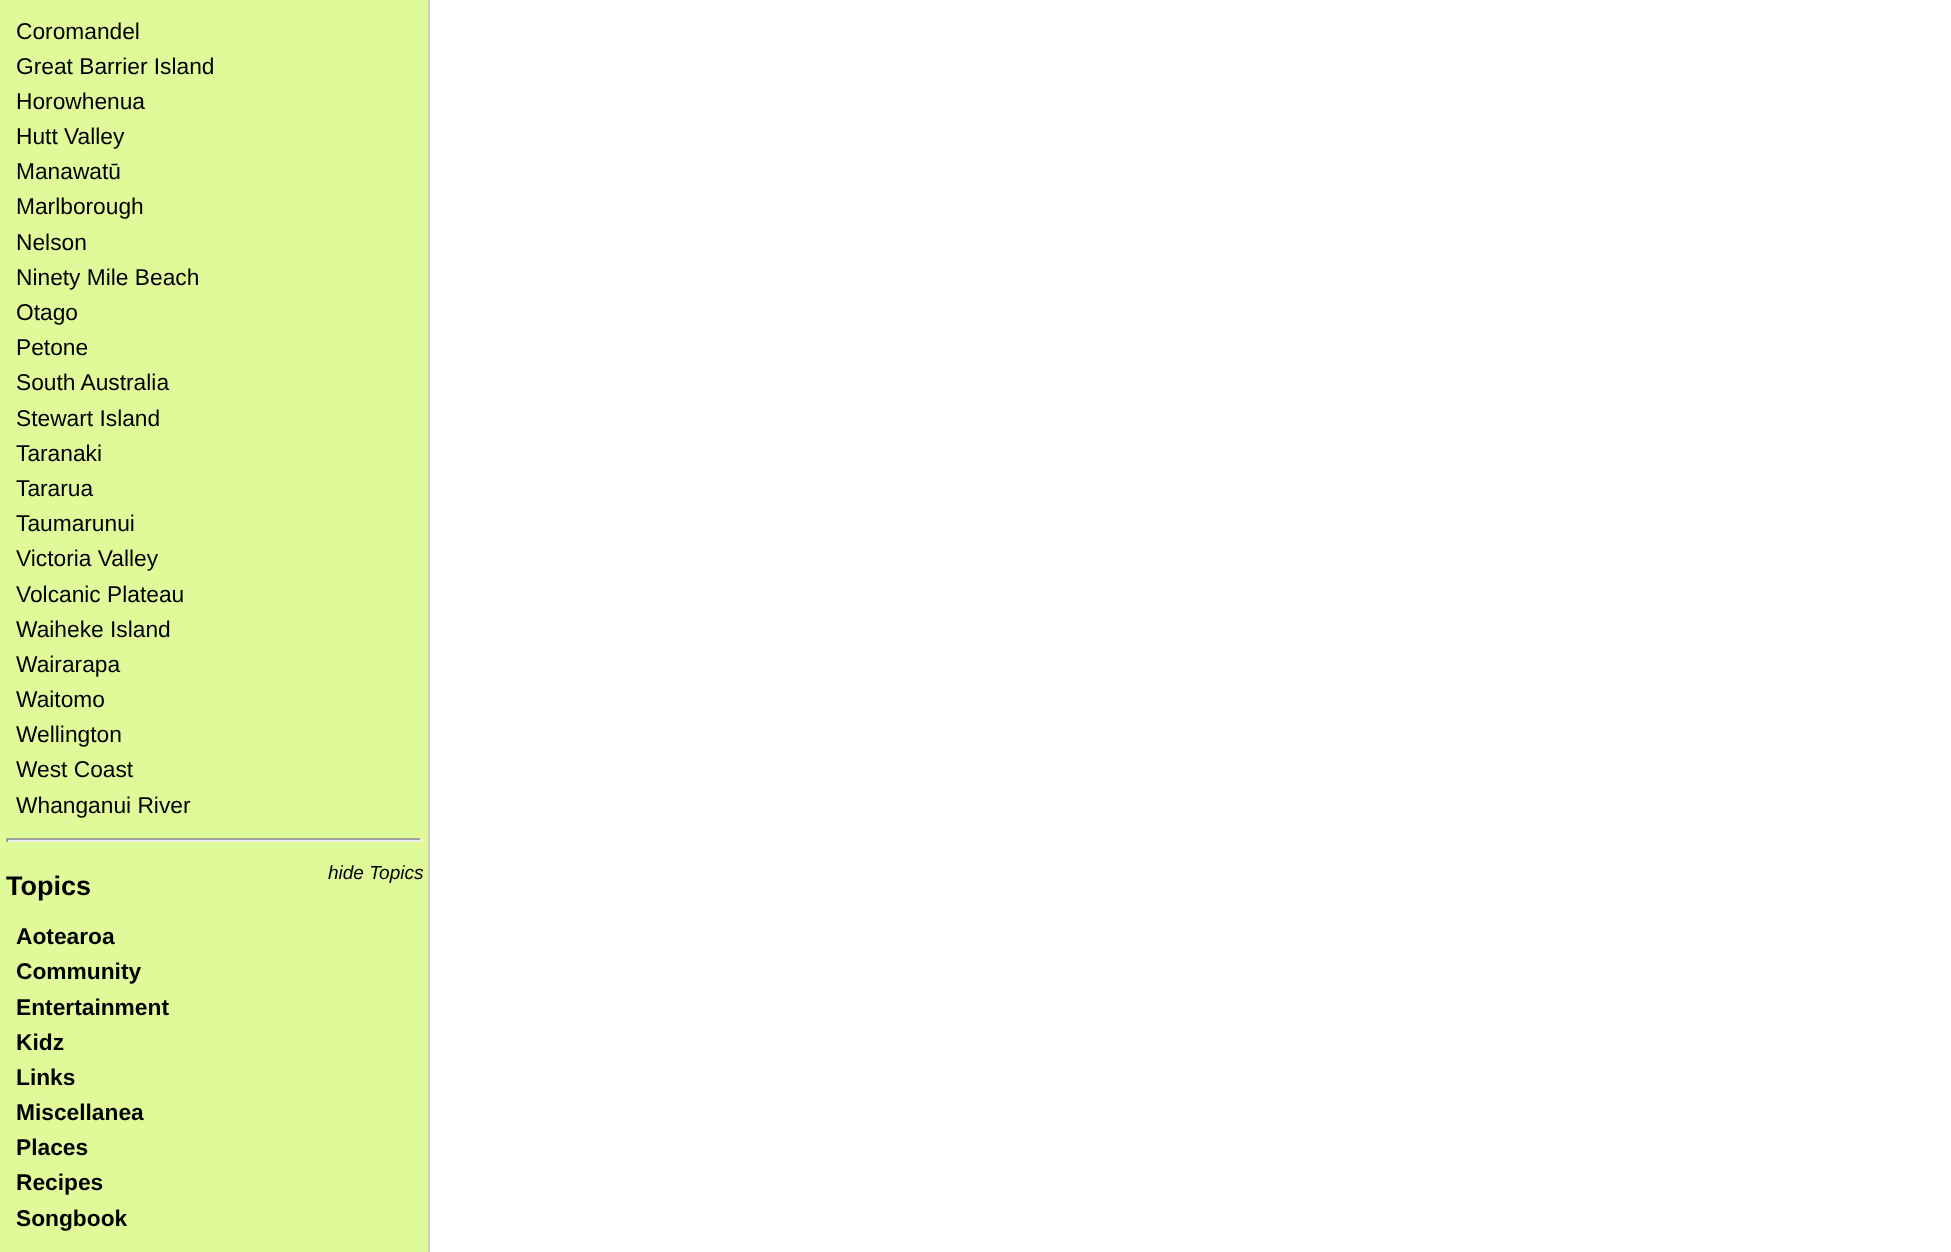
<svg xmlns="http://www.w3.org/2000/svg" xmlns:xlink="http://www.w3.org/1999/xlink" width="1951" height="1252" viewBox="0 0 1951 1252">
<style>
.cls-1{font:22.75px Liberation Sans;fill:#000000}
.cls-2{font:bold 27px Liberation Sans;fill:#000000}
.cls-3{font:italic 19px Liberation Sans;fill:#000000}
.cls-4{font:bold 22.75px Liberation Sans;fill:#000000}
</style>
<rect width="100%" height="100%" fill="#e0f999"/>
<rect fill="#cccccc" x="428" y="0" width="2" height="1252"/>
<rect fill="#9f9f9f" x="6" y="838" width="416" height="2"/>
<rect fill="#eeeeee" x="420" y="838" width="2" height="4"/>
<rect fill="#eeeeee" x="6" y="840" width="416" height="2"/>
<rect fill="#9f9f9f" x="6" y="838" width="2" height="4"/>
<rect fill="#ffffff" x="430" y="0" width="1521" height="1252"/>
<text class="cls-1"><tspan x="16" y="39">Coromandel</tspan><tspan x="16" y="74">Great Barrier Island</tspan><tspan x="16" y="109">Horowhenua</tspan><tspan x="16" y="144">Hutt Valley</tspan><tspan x="16" y="179">Manawatū</tspan><tspan x="16" y="214">Marlborough</tspan><tspan x="16" y="250">Nelson</tspan><tspan x="16" y="285">Ninety Mile Beach</tspan><tspan x="16" y="320">Otago</tspan><tspan x="16" y="355">Petone</tspan><tspan x="16" y="390">South Australia</tspan><tspan x="16" y="426">Stewart Island</tspan><tspan x="16" y="461">Taranaki</tspan><tspan x="16" y="496">Tararua</tspan><tspan x="16" y="531">Taumarunui</tspan><tspan x="16" y="566">Victoria Valley</tspan><tspan x="16" y="602">Volcanic Plateau</tspan><tspan x="16" y="637">Waiheke Island</tspan><tspan x="16" y="672">Wairarapa</tspan><tspan x="16" y="707">Waitomo</tspan><tspan x="16" y="742">Wellington</tspan><tspan x="16" y="777">West Coast</tspan><tspan x="16" y="813">Whanganui River</tspan></text>
<text class="cls-2" x="6" y="895">Topics</text>
<text class="cls-3" x="328" y="879">hide Topics</text>
<text class="cls-4"><tspan x="16" y="944">Aotearoa</tspan><tspan x="16" y="979">Community</tspan><tspan x="16" y="1015">Entertainment</tspan><tspan x="16" y="1050">Kidz</tspan><tspan x="16" y="1085">Links</tspan><tspan x="16" y="1120">Miscellanea</tspan><tspan x="16" y="1155">Places</tspan><tspan x="16" y="1190">Recipes</tspan><tspan x="16" y="1226">Songbook</tspan></text>
</svg>
